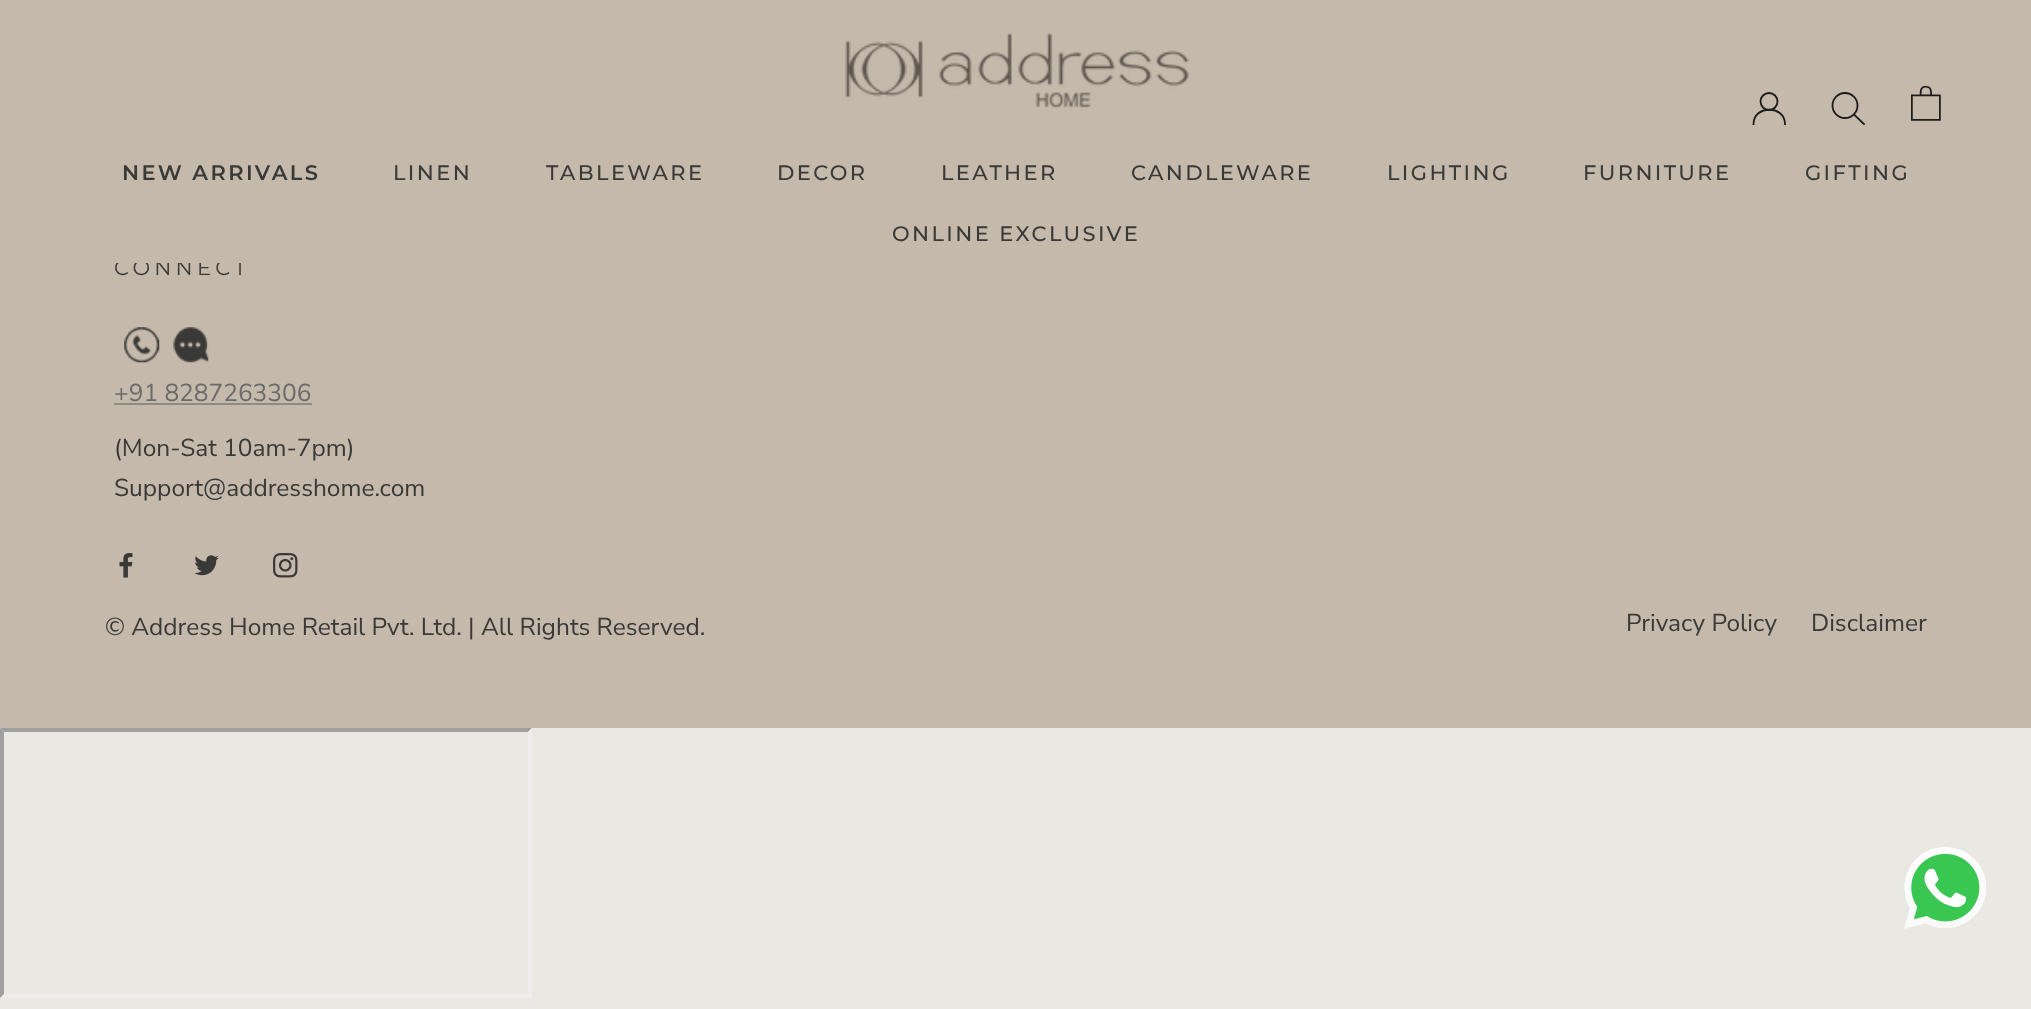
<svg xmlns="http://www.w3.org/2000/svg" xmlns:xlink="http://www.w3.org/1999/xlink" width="2031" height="1009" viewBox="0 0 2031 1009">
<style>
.cls-1{font:21px Montserrat;letter-spacing:4.25px;fill:#393938}
.cls-2{font:500 21px Montserrat;letter-spacing:2.4px;fill:#393938}
.cls-3{font:600 21px Montserrat;letter-spacing:2.4px;fill:#393938}
.cls-4{font:24.5px Nunito Sans;fill:#6a6a6a}
.cls-5{font:24.5px Nunito Sans;fill:#393938}
</style>
<rect width="100%" height="100%" fill="#eae8e2"/>
<rect fill="#c5b9ab" x="0" y="263" width="2031" height="465"/>
<image xlink:href="image2.png" x="124" y="327" width="36" height="36"/>
<image xlink:href="image3.png" x="173" y="327" width="36" height="36"/>
<rect fill="#8e8a84" x="114" y="403" width="198" height="2"/>
<image xlink:href="image4.png" x="119" y="553" width="14" height="25"/>
<image xlink:href="image5.png" x="194" y="555" width="25" height="21"/>
<image xlink:href="image6.png" x="273" y="553" width="25" height="25"/>
<path fill="#9f9f9f" d="M0 728H532L528 732H4Z"/>
<path fill="#eeeeee" d="M532 728V998L528 994V732Z"/>
<path fill="#eeeeee" d="M532 998H0L4 994H528Z"/>
<path fill="#9f9f9f" d="M0 998V728L4 732V994Z"/>
<image xlink:href="image7.png" x="1904" y="847" width="82" height="82"/>
<text class="cls-1" x="114" y="275">CONNECT</text>
<rect fill="#c5b9ab" x="0" y="0" width="2031" height="263"/>
<image xlink:href="image1.png" x="1911" y="86" width="30" height="35"/>
<path fill="none" stroke="#1c1b1b" stroke-width="1.8" stroke-linecap="square" d="M1864 124L1854 114.5"/>
<circle fill="none" stroke="#1c1b1b" stroke-width="1.8" cx="1845" cy="105.5" r="12.5"/>
<path fill="none" stroke="#1c1b1b" stroke-width="1.8" stroke-linecap="square" d="M1753.5 124C1753.5 105 1785 105 1785 124"/>
<circle fill="none" stroke="#1c1b1b" stroke-width="1.8" cx="1769" cy="101.5" r="8.5"/>
<image xlink:href="image0.png" x="845" y="33" width="344" height="75"/>
<text class="cls-2" x="892" y="241">ONLINE EXCLUSIVE</text>
<text class="cls-2" x="1805" y="180">GIFTING</text>
<text class="cls-2" x="1583" y="180">FURNITURE</text>
<text class="cls-2" x="1387" y="180">LIGHTING</text>
<text class="cls-2" x="1131" y="180">CANDLEWARE</text>
<text class="cls-2" x="941" y="180">LEATHER</text>
<text class="cls-2" x="777" y="180">DECOR</text>
<text class="cls-2" x="546" y="180">TABLEWARE</text>
<text class="cls-2" x="393" y="180">LINEN</text>
<text class="cls-3" x="122" y="180">NEW ARRIVALS</text>
<text class="cls-4" x="114" y="401">+91 8287263306</text>
<text class="cls-5"><tspan x="114" y="456">(Mon-Sat 10am-7pm)</tspan><tspan x="114" y="496">Support@addresshome.com</tspan></text>
<text class="cls-5" x="105" y="635">© Address Home Retail Pvt. Ltd. | All Rights Reserved.</text>
<text class="cls-5" x="1626" y="631">Privacy Policy</text>
<text class="cls-5" x="1811" y="631">Disclaimer</text>
</svg>
